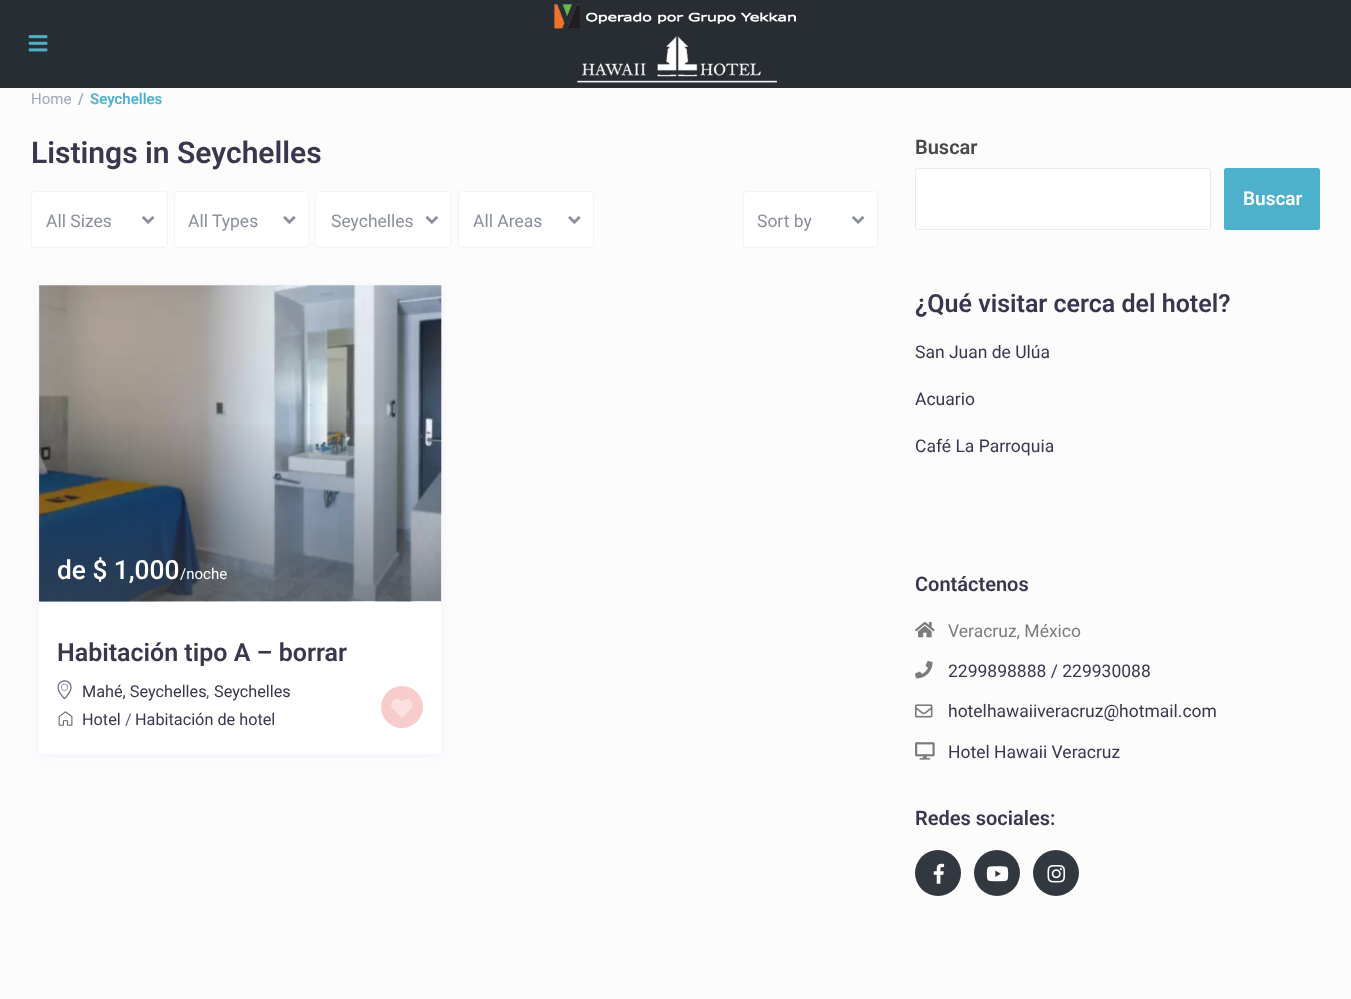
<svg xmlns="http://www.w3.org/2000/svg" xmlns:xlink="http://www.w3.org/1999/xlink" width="1351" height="999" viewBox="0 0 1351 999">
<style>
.cls-1{font:15px Roboto;fill:#a1a7b4}
.cls-2{font:600 15px Roboto;fill:#a1a7b4}
.cls-3{font:600 15px Roboto;fill:#4eb1cc}
.cls-4{font:600 30px Roboto;fill:#39374d}
.cls-5{font:17.5px Roboto;fill:#8a8f9a}
.cls-6{font:500 26.25px Roboto;fill:#ffffff}
.cls-7{font:15px Roboto;fill:#ffffff}
.cls-8{font:600 25px Roboto;fill:#39374d}
.cls-9{font:16.25px Roboto;fill:#39374d}
.cls-10{font:16.25px Roboto;fill:#5d6475}
.cls-11{font:600 20px Roboto;fill:#484848}
.cls-12{font:600 19px Roboto;fill:#ffffff}
.cls-13{font:17.5px Roboto;fill:#39374d}
.cls-14{font:600 20px Roboto;fill:#39374d}
.cls-15{font:17.5px Roboto;fill:#7c7c7c}
</style>
<defs>
<linearGradient id="g1" gradientUnits="userSpaceOnUse" x1="240" y1="411" x2="240" y2="601"><stop offset="0.03" stop-color="#484848" stop-opacity="0"/><stop offset="1" stop-color="#484848" stop-opacity="0.6"/></linearGradient>
</defs>
<rect width="100%" height="100%" fill="#fcfcfc"/>
<rect fill="#282d33" x="0" y="0" width="1351" height="88"/>
<image xlink:href="image0.png" x="28" y="35" width="20" height="17"/>
<image xlink:href="image1.png" x="554" y="4" width="242" height="79"/>
<rect fill="#ffffff" stroke="#f1f3f7" x="31.5" y="191.5" width="136" height="56" rx="3.5"/>
<image xlink:href="image2.png" x="142" y="216" width="13" height="8"/>
<rect fill="#ffffff" stroke="#f1f3f7" x="174.5" y="191.5" width="134" height="56" rx="3.5"/>
<image xlink:href="image3.png" x="283" y="216" width="13" height="8"/>
<rect fill="#ffffff" stroke="#f1f3f7" x="315.5" y="191.5" width="135" height="56" rx="3.5"/>
<image xlink:href="image4.png" x="425" y="216" width="13" height="8"/>
<rect fill="#ffffff" stroke="#f1f3f7" x="458.5" y="191.5" width="135" height="56" rx="3.5"/>
<image xlink:href="image3.png" x="568" y="216" width="13" height="8"/>
<rect fill="#ffffff" stroke="#f1f3f7" x="743.5" y="191.5" width="134" height="56" rx="3.5"/>
<image xlink:href="image2.png" x="852" y="216" width="13" height="8"/>
<rect fill="#b57ffa" fill-opacity="0.1" filter="blur(7px)" x="39" y="288" width="402" height="468"/>
<rect fill="#ffffff" x="39" y="285" width="402" height="469"/>
<image xlink:href="image5.png" x="39" y="285" width="403" height="317"/>
<rect fill="url(#g1)" x="39" y="423" width="402" height="178"/>
<image xlink:href="image6.png" x="57" y="680" width="15" height="19"/>
<image xlink:href="image7.png" x="58" y="711" width="15" height="15"/>
<circle fill="#f7cdcc" cx="402" cy="707" r="21"/>
<image xlink:href="image8.png" x="391" y="699" width="22" height="19"/>
<rect fill="#ffffff" stroke="#e7e9ef" x="915.5" y="168.5" width="295" height="61" rx="2"/>
<rect fill="#4eb1cc" x="1224" y="168" width="96" height="62" rx="2.5"/>
<image xlink:href="image9.png" x="915" y="622" width="20" height="16"/>
<image xlink:href="image10.png" x="915" y="661" width="18" height="18"/>
<image xlink:href="image11.png" x="915" y="704" width="18" height="14"/>
<image xlink:href="image12.png" x="915" y="742" width="20" height="18"/>
<circle fill="#323840" cx="938" cy="873" r="23"/>
<image xlink:href="image13.png" x="933" y="863" width="12" height="21"/>
<circle fill="#323840" cx="997" cy="873" r="23"/>
<image xlink:href="image14.png" x="986" y="866" width="23" height="16"/>
<circle fill="#323840" cx="1056" cy="873" r="23"/>
<image xlink:href="image15.png" x="1047" y="865" width="18" height="18"/>
<text class="cls-1" x="31" y="104">Home</text>
<text class="cls-2" x="78" y="104">/</text>
<text class="cls-3" x="90" y="104">Seychelles</text>
<text class="cls-4" x="31" y="163">Listings in Seychelles</text>
<text class="cls-5" x="46" y="227">All Sizes</text>
<text class="cls-5" x="188" y="227">All Types</text>
<text class="cls-5" x="331" y="227">Seychelles</text>
<text class="cls-5" x="473" y="227">All Areas</text>
<text class="cls-5" x="757" y="227">Sort by</text>
<text class="cls-6" x="57" y="579">de $ 1,000</text>
<text class="cls-7" x="180" y="579">/noche</text>
<text class="cls-8" x="57" y="661">Habitación tipo A – borrar</text>
<text class="cls-9" x="82" y="697">Mahé, Seychelles</text>
<text class="cls-10" x="206" y="697">,</text>
<text class="cls-9" x="214" y="697">Seychelles</text>
<text class="cls-9" x="82" y="725">Hotel</text>
<text class="cls-10" x="125" y="725">/</text>
<text class="cls-9" x="135" y="725">Habitación de hotel</text>
<text class="cls-11" x="915" y="154">Buscar</text>
<text class="cls-12" x="1243" y="205">Buscar</text>
<text class="cls-8" x="915" y="312">¿Qué visitar cerca del hotel?</text>
<text class="cls-13" x="915" y="358">San Juan de Ulúa</text>
<text class="cls-13" x="915" y="405">Acuario</text>
<text class="cls-13" x="915" y="452">Café La Parroquia</text>
<text class="cls-14" x="915" y="591">Contáctenos</text>
<text class="cls-15" x="948" y="637">Veracruz, México</text>
<text class="cls-13" x="948" y="677">2299898888 / 229930088</text>
<text class="cls-13" x="948" y="717">hotelhawaiiveracruz@hotmail.com</text>
<text class="cls-13" x="948" y="758">Hotel Hawaii Veracruz</text>
<text class="cls-14" x="915" y="825">Redes sociales:</text>
</svg>
